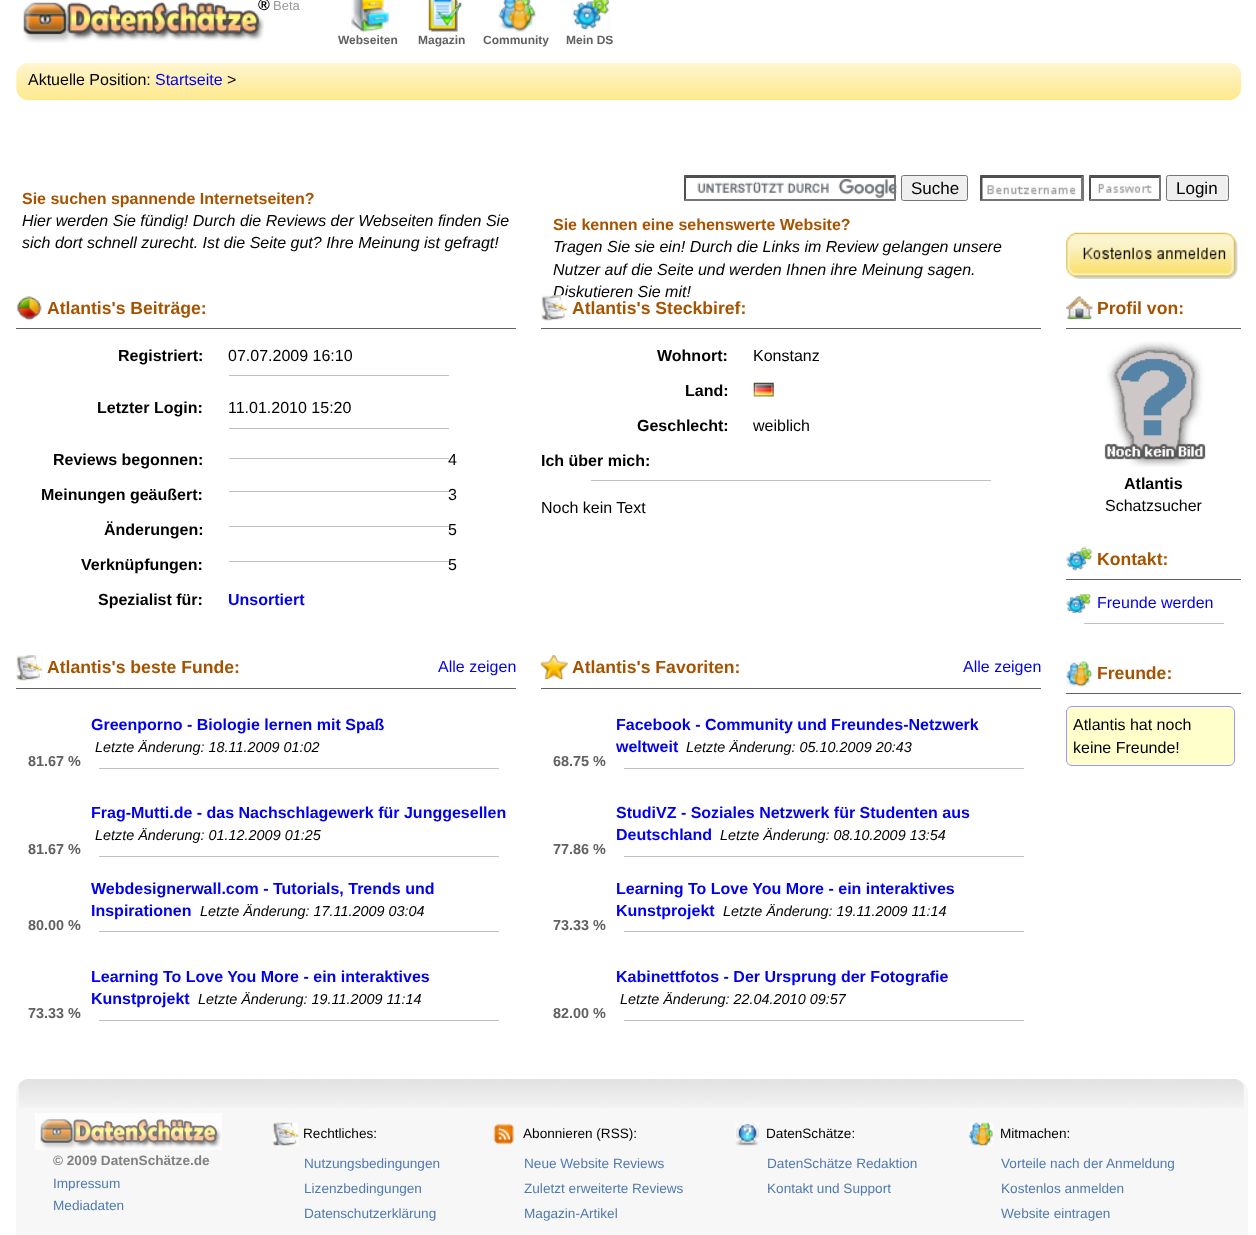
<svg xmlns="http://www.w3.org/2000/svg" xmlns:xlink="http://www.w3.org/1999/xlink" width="1256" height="1235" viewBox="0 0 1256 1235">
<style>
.cls-1{font:bold 16px Liberation Sans;fill:#000000}
.cls-2{font:13px Liberation Sans;fill:#999999}
.cls-3{font:bold 12px Liberation Sans;fill:#616161}
.cls-4{font:16px Liberation Sans;fill:#000000}
.cls-5{font:16px Liberation Sans;fill:#0000ee}
.cls-6{font:17px Liberation Sans;fill:#000000}
.cls-7{font:bold 16px Liberation Sans;fill:#a65300}
.cls-8{font:italic 16px Liberation Sans;fill:#000000}
.cls-9{font:bold 17.6px Liberation Sans;fill:#a65300}
.cls-10{font:bold 16px Liberation Sans;fill:#0000ee}
.cls-11{font:italic 14.4px Liberation Sans;fill:#000000}
.cls-12{font:bold 14.4px Liberation Sans;fill:#616161}
.cls-13{font:bold 13.6px Liberation Sans;fill:#818181}
.cls-14{font:13.6px Liberation Sans;fill:#507ab0}
.cls-15{font:13.6px Liberation Sans;fill:#000000}
</style>
<rect width="100%" height="100%" fill="#ffffff"/>
<image xlink:href="image0.png" x="23" y="2" width="242" height="41"/>
<image xlink:href="image1.png" x="351" y="0" width="38" height="32"/>
<image xlink:href="image2.png" x="428" y="0" width="34" height="32"/>
<image xlink:href="image3.png" x="498" y="0" width="39" height="32"/>
<image xlink:href="image4.png" x="572" y="0" width="38" height="32"/>
<rect fill="#ffffcc" x="16" y="63" width="1225" height="37" rx="13"/>
<image xlink:href="image5.png" x="16" y="63" width="1226" height="38"/>
<image xlink:href="image6.png" x="697" y="179" width="200" height="19"/>
<path fill="#4f4f4f" d="M684 175H896L894 178H686Z"/>
<path fill="#767676" d="M896 175V201L894 199V177.5Z"/>
<path fill="#767676" d="M896 201H684L686 199H894Z"/>
<path fill="#4f4f4f" d="M684 201V175L686 177.5V199Z"/>
<rect fill="#efefef" stroke="#767676" x="901.5" y="175.5" width="66" height="25" rx="2"/>
<image xlink:href="image7.png" x="987" y="185" width="89" height="10"/>
<path fill="#4f4f4f" d="M980 175H1084L1081 178H982Z"/>
<path fill="#767676" d="M1084 175V201L1081 199V177.5Z"/>
<path fill="#767676" d="M1084 201H980L982 199H1081Z"/>
<path fill="#4f4f4f" d="M980 201V175L982.5 177.5V199Z"/>
<image xlink:href="image8.png" x="1098" y="183" width="54" height="10"/>
<path fill="#4f4f4f" d="M1089 175H1161L1159 178H1091Z"/>
<path fill="#767676" d="M1161 175V201L1159 199V177.5Z"/>
<path fill="#767676" d="M1161 201H1089L1091 199H1159Z"/>
<path fill="#4f4f4f" d="M1089 201V175L1091 177.5V199Z"/>
<rect fill="#efefef" stroke="#767676" x="1166.5" y="175.5" width="62" height="25" rx="2"/>
<image xlink:href="image9.png" x="1066" y="232" width="172" height="47"/>
<image xlink:href="image10.png" x="16" y="296" width="26" height="25"/>
<rect fill="#616161" x="16" y="328" width="500" height="1"/>
<rect fill="#c1c1c1" x="229" y="375" width="220" height="1"/>
<rect fill="#c1c1c1" x="229" y="428" width="220" height="1"/>
<rect fill="#616161" x="541" y="328" width="500" height="1"/>
<image xlink:href="image12.png" x="753" y="382" width="21" height="15"/>
<rect fill="#c1c1c1" x="591" y="480" width="400" height="1"/>
<image xlink:href="image13.png" x="16" y="655" width="27" height="26"/>
<rect fill="#616161" x="16" y="688" width="500" height="1"/>
<rect fill="#c1c1c1" x="99" y="768" width="400" height="1"/>
<rect fill="#c1c1c1" x="99" y="856" width="400" height="1"/>
<rect fill="#c1c1c1" x="99" y="931" width="400" height="1"/>
<rect fill="#c1c1c1" x="99" y="1020" width="400" height="1"/>
<image xlink:href="image14.png" x="541" y="655" width="27" height="25"/>
<rect fill="#616161" x="541" y="688" width="500" height="1"/>
<rect fill="#c1c1c1" x="624" y="768" width="400" height="1"/>
<rect fill="#c1c1c1" x="624" y="856" width="400" height="1"/>
<rect fill="#c1c1c1" x="624" y="931" width="400" height="1"/>
<rect fill="#c1c1c1" x="624" y="1020" width="400" height="1"/>
<image xlink:href="image15.png" x="1066" y="296" width="27" height="24"/>
<rect fill="#616161" x="1066" y="328" width="175" height="1"/>
<image xlink:href="image16.png" x="1104" y="341" width="102" height="126"/>
<image xlink:href="image17.png" x="1066" y="546" width="27" height="25"/>
<rect fill="#616161" x="1066" y="579" width="175" height="1"/>
<image xlink:href="image18.png" x="1066" y="594" width="26" height="19"/>
<rect fill="#c1c1c1" x="1084" y="623" width="140" height="1"/>
<image xlink:href="image19.png" x="1066" y="661" width="27" height="26"/>
<rect fill="#616161" x="1066" y="693" width="175" height="1"/>
<rect fill="#ffffcc" stroke="#9999ff" x="1066.5" y="706.5" width="168" height="59" rx="5.5"/>
<path fill="#f7f7f7" d="M29 1079H1235C1242 1079 1248 1085 1248 1092V1235H16V1092C16 1085 22 1079 29 1079Z"/>
<image xlink:href="image20.png" x="18" y="1079" width="1226" height="29"/>
<image xlink:href="image21.png" x="35" y="1113" width="187" height="37"/>
<image xlink:href="image22.png" x="272" y="1122" width="27" height="24"/>
<image xlink:href="image23.png" x="493" y="1123" width="21" height="22"/>
<image xlink:href="image24.png" x="735" y="1123" width="24" height="23"/>
<image xlink:href="image25.png" x="968" y="1122" width="26" height="24"/>
<text class="cls-1" x="258" y="10">®</text>
<text class="cls-2" x="273" y="10">Beta</text>
<text class="cls-3" x="338" y="44">Webseiten</text>
<text class="cls-3" x="418" y="44">Magazin</text>
<text class="cls-3" x="483" y="44">Community</text>
<text class="cls-3" x="566" y="44">Mein DS</text>
<text class="cls-4" x="28" y="85">Aktuelle Position:</text>
<text class="cls-5" x="155" y="85">Startseite</text>
<text class="cls-4" x="227" y="85">&gt;</text>
<text class="cls-6" x="911" y="194">Suche</text>
<text class="cls-6" x="1176" y="194">Login</text>
<text class="cls-7" x="22" y="204">Sie suchen spannende Internetseiten?</text>
<text class="cls-8"><tspan x="22" y="226">Hier werden Sie fündig! Durch die Reviews der Webseiten finden Sie</tspan><tspan x="22" y="248">sich dort schnell zurecht. Ist die Seite gut? Ihre Meinung ist gefragt!</tspan></text>
<text class="cls-7" x="553" y="230">Sie kennen eine sehenswerte Website?</text>
<text class="cls-8"><tspan x="553" y="252">Tragen Sie sie ein! Durch die Links im Review gelangen unsere</tspan><tspan x="553" y="275">Nutzer auf die Seite und werden Ihnen ihre Meinung sagen.</tspan><tspan x="553" y="297">Diskutieren Sie mit!</tspan></text>
<text class="cls-9" x="47" y="314">Atlantis's Beiträge:</text>
<text class="cls-1" x="118" y="361">Registriert:</text>
<text class="cls-4" x="228" y="361">07.07.2009 16:10</text>
<text class="cls-1" x="97" y="413">Letzter Login:</text>
<text class="cls-4" x="228" y="413">11.01.2010 15:20</text>
<text class="cls-1" x="53" y="465">Reviews begonnen:</text>
<text class="cls-4" x="448" y="465">4</text>
<rect fill="#c1c1c1" x="229" y="458" width="220" height="1"/>
<text class="cls-1" x="41" y="500">Meinungen geäußert:</text>
<text class="cls-4" x="448" y="500">3</text>
<rect fill="#c1c1c1" x="229" y="491" width="220" height="1"/>
<text class="cls-1" x="104" y="535">Änderungen:</text>
<text class="cls-4" x="448" y="535">5</text>
<rect fill="#c1c1c1" x="229" y="526" width="220" height="1"/>
<text class="cls-1" x="81" y="570">Verknüpfungen:</text>
<text class="cls-4" x="448" y="570">5</text>
<rect fill="#c1c1c1" x="229" y="561" width="220" height="1"/>
<text class="cls-1" x="98" y="605">Spezialist für:</text>
<text class="cls-10" x="228" y="605">Unsortiert</text>
<image xlink:href="image11.png" x="541" y="295" width="27" height="26"/>
<text class="cls-9" x="572" y="314">Atlantis's Steckbiref:</text>
<text class="cls-1" x="657" y="361">Wohnort:</text>
<text class="cls-4" x="753" y="361">Konstanz</text>
<text class="cls-1" x="685" y="396">Land:</text>
<text class="cls-1" x="637" y="431">Geschlecht:</text>
<text class="cls-4" x="753" y="431">weiblich</text>
<text class="cls-1" x="541" y="466">Ich über mich:</text>
<text class="cls-4" x="541" y="513">Noch kein Text</text>
<text class="cls-9" x="47" y="673">Atlantis's beste Funde:</text>
<text class="cls-5" x="438" y="672">Alle zeigen</text>
<text class="cls-10" x="91" y="730">Greenporno - Biologie lernen mit Spaß</text>
<text class="cls-11" x="95" y="752">Letzte Änderung: 18.11.2009 01:02</text>
<text class="cls-12" x="28" y="766">81.67 %</text>
<text class="cls-10" x="91" y="818">Frag-Mutti.de - das Nachschlagewerk für Junggesellen</text>
<text class="cls-11" x="95" y="840">Letzte Änderung: 01.12.2009 01:25</text>
<text class="cls-12" x="28" y="854">81.67 %</text>
<text class="cls-10"><tspan x="91" y="894">Webdesignerwall.com - Tutorials, Trends und</tspan><tspan x="91" y="916">Inspirationen</tspan></text>
<text class="cls-11" x="200" y="916">Letzte Änderung: 17.11.2009 03:04</text>
<text class="cls-12" x="28" y="930">80.00 %</text>
<text class="cls-10"><tspan x="91" y="982">Learning To Love You More - ein interaktives</tspan><tspan x="91" y="1004">Kunstprojekt</tspan></text>
<text class="cls-11" x="198" y="1004">Letzte Änderung: 19.11.2009 11:14</text>
<text class="cls-12" x="28" y="1018">73.33 %</text>
<text class="cls-9" x="572" y="673">Atlantis's Favoriten:</text>
<text class="cls-5" x="963" y="672">Alle zeigen</text>
<text class="cls-10"><tspan x="616" y="730">Facebook - Community und Freundes-Netzwerk</tspan><tspan x="616" y="752">weltweit</tspan></text>
<text class="cls-11" x="686" y="752">Letzte Änderung: 05.10.2009 20:43</text>
<text class="cls-12" x="553" y="766">68.75 %</text>
<text class="cls-10"><tspan x="616" y="818">StudiVZ - Soziales Netzwerk für Studenten aus</tspan><tspan x="616" y="840">Deutschland</tspan></text>
<text class="cls-11" x="720" y="840">Letzte Änderung: 08.10.2009 13:54</text>
<text class="cls-12" x="553" y="854">77.86 %</text>
<text class="cls-10"><tspan x="616" y="894">Learning To Love You More - ein interaktives</tspan><tspan x="616" y="916">Kunstprojekt</tspan></text>
<text class="cls-11" x="723" y="916">Letzte Änderung: 19.11.2009 11:14</text>
<text class="cls-12" x="553" y="930">73.33 %</text>
<text class="cls-10" x="616" y="982">Kabinettfotos - Der Ursprung der Fotografie</text>
<text class="cls-11" x="620" y="1004">Letzte Änderung: 22.04.2010 09:57</text>
<text class="cls-12" x="553" y="1018">82.00 %</text>
<text class="cls-9" x="1097" y="314">Profil von:</text>
<text class="cls-1" x="1124" y="489">Atlantis</text>
<text class="cls-4" x="1105" y="511">Schatzsucher</text>
<text class="cls-9" x="1097" y="565">Kontakt:</text>
<text class="cls-5" x="1097" y="608">Freunde werden</text>
<text class="cls-9" x="1097" y="679">Freunde:</text>
<text class="cls-4"><tspan x="1073" y="730">Atlantis hat noch</tspan><tspan x="1073" y="753">keine Freunde!</tspan></text>
<text class="cls-13" x="53" y="1165">© 2009 DatenSchätze.de</text>
<text class="cls-14"><tspan x="53" y="1188">Impressum</tspan><tspan x="53" y="1210">Mediadaten</tspan></text>
<text class="cls-15" x="303" y="1138">Rechtliches:</text>
<text class="cls-14"><tspan x="304" y="1168">Nutzungsbedingungen</tspan><tspan x="304" y="1193">Lizenzbedingungen</tspan><tspan x="304" y="1218">Datenschutzerklärung</tspan></text>
<text class="cls-15" x="523" y="1138">Abonnieren (RSS):</text>
<text class="cls-14"><tspan x="524" y="1168">Neue Website Reviews</tspan><tspan x="524" y="1193">Zuletzt erweiterte Reviews</tspan><tspan x="524" y="1218">Magazin-Artikel</tspan></text>
<text class="cls-15" x="766" y="1138">DatenSchätze:</text>
<text class="cls-14"><tspan x="767" y="1168">DatenSchätze Redaktion</tspan><tspan x="767" y="1193">Kontakt und Support</tspan></text>
<text class="cls-15" x="1000" y="1138">Mitmachen:</text>
<text class="cls-14"><tspan x="1001" y="1168">Vorteile nach der Anmeldung</tspan><tspan x="1001" y="1193">Kostenlos anmelden</tspan><tspan x="1001" y="1218">Website eintragen</tspan></text>
</svg>
